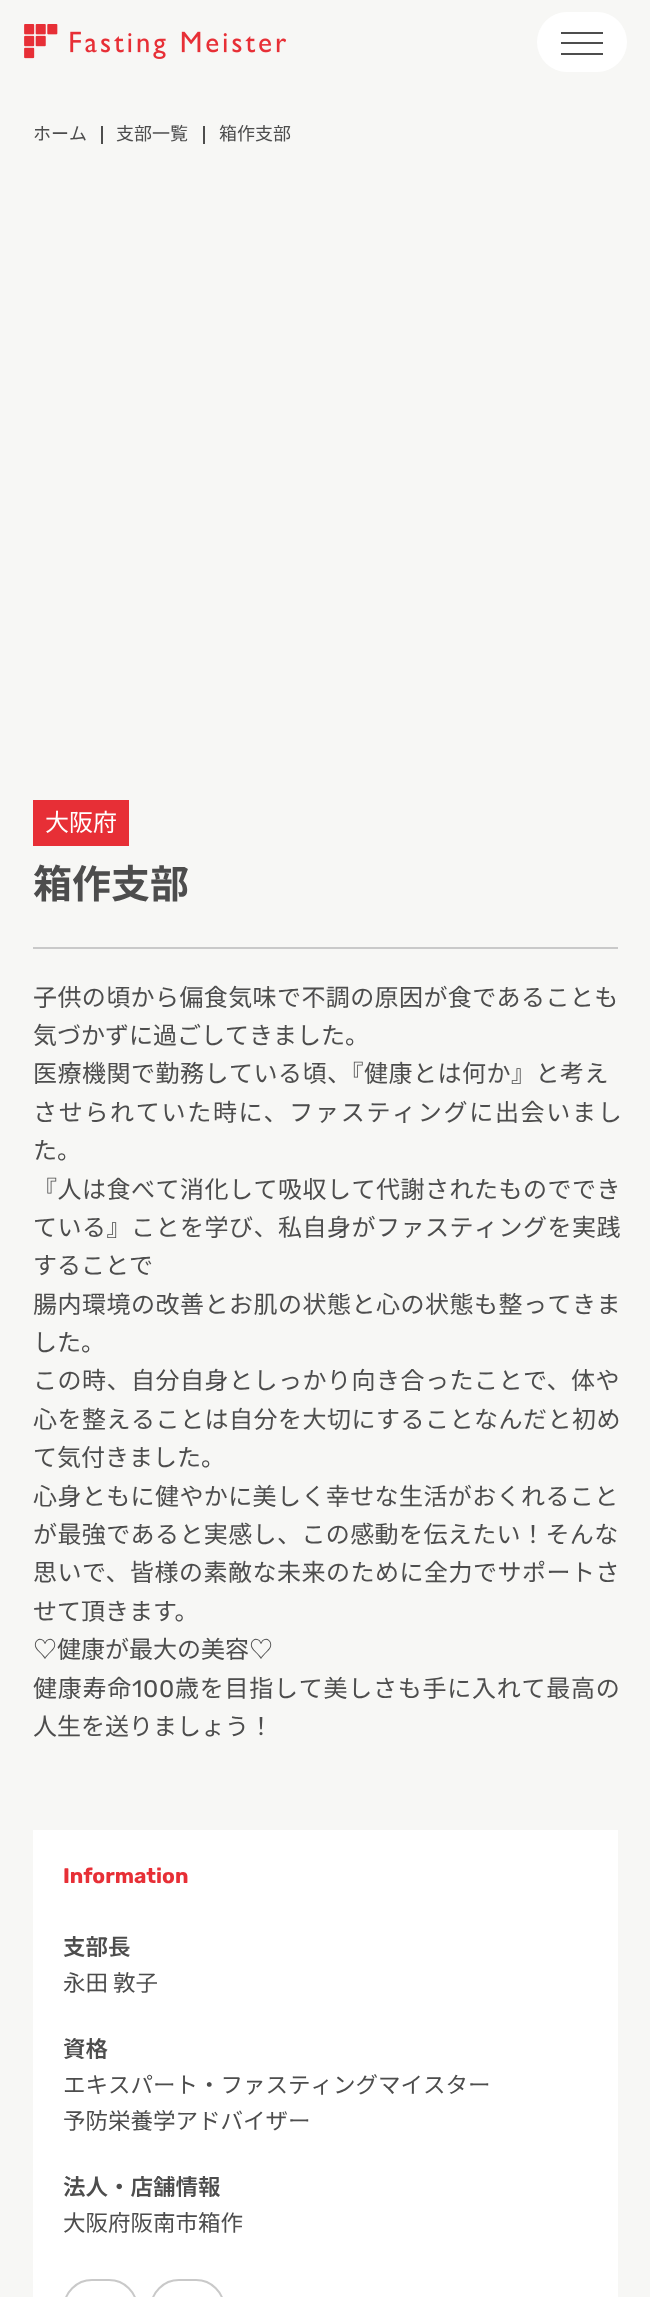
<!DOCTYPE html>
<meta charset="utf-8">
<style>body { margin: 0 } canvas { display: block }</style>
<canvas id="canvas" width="650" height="2297"></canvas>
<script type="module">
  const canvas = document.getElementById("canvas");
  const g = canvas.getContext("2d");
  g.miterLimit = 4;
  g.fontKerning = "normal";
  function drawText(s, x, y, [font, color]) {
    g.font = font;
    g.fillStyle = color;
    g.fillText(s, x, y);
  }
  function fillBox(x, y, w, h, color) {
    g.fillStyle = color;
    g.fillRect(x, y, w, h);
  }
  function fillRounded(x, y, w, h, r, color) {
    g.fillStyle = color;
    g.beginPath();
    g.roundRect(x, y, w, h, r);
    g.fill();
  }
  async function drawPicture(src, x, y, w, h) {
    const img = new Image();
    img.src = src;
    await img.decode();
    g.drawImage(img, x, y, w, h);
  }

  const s1 = ["18px Noto Sans JP", "#4D4D4D"];
  const s2 = ["24px Noto Sans JP", "#FFFFFF"];
  const s3 = ["bold 39px Noto Sans JP", "#4D4D4D"];
  const s4 = ["24px Noto Sans JP", "#4D4D4D"];
  const s5 = ["24px Rubik", "#4D4D4D"];
  const s6 = ["bold 21px Rubik", "#E72F36"];
  const s7 = ["600 22.5px Noto Sans JP", "#4D4D4D"];
  const s8 = ["22.5px Noto Sans JP", "#4D4D4D"];

  fillBox(0, 0, 650, 2297, "#F7F7F5");
  await drawPicture("pic1.png", 24, 24, 262, 35);
  fillRounded(537, 12, 90, 60, 30, "#FFFFFF");
  fillBox(561, 32, 42, 2, "#4D4D4D");
  fillBox(561, 42, 42, 2, "#4D4D4D");
  fillBox(561, 53, 42, 2, "#4D4D4D");
  drawText("ホーム", 33, 140, s1);
  fillBox(101, 126, 2, 18, "#4D4D4D");
  drawText("支部一覧", 116, 140, s1);
  fillBox(203, 126, 2, 18, "#4D4D4D");
  drawText("箱作支部", 219, 140, s1);
  fillBox(33, 800, 96, 46, "#E72F36");
  drawText("大阪府", 45, 831, s2);
  drawText("箱作支部", 33, 898, s3);
  fillBox(33, 947, 585, 2, "#C9C9C9");
  g.letterSpacing = "0.4px";
  drawText("子供の頃から偏食気味で不調の原因が食であることも", 33, 1006, s4);
  g.letterSpacing = "0px";
  drawText("気づかずに過ごしてきました。", 33, 1044, s4);
  g.letterSpacing = "0.5px";
  drawText("医療機関で勤務している頃、『健康とは何か』と考え", 33, 1082, s4);
  g.letterSpacing = "1.7px";
  drawText("させられていた時に、ファスティングに出会いまし", 33, 1121, s4);
  g.letterSpacing = "0px";
  drawText("た。", 33, 1159, s4);
  g.letterSpacing = "0.5px";
  drawText("『人は食べて消化して吸収して代謝されたものででき", 33, 1198, s4);
  drawText("ている』ことを学び、私自身がファスティングを実践", 33, 1236, s4);
  g.letterSpacing = "0px";
  drawText("することで", 33, 1274, s4);
  g.letterSpacing = "0.5px";
  drawText("腸内環境の改善とお肌の状態と心の状態も整ってきま", 33, 1313, s4);
  g.letterSpacing = "0px";
  drawText("した。", 33, 1351, s4);
  g.letterSpacing = "0.5px";
  drawText("この時、自分自身としっかり向き合ったことで、体や", 33, 1389, s4);
  drawText("心を整えることは自分を大切にすることなんだと初め", 33, 1428, s4);
  g.letterSpacing = "0px";
  drawText("て気付きました。", 33, 1466, s4);
  g.letterSpacing = "0.4px";
  drawText("心身ともに健やかに美しく幸せな生活がおくれること", 33, 1505, s4);
  drawText("が最強であると実感し、この感動を伝えたい！そんな", 33, 1543, s4);
  g.letterSpacing = "0.5px";
  drawText("思いで、皆様の素敵な未来のために全力でサポートさ", 33, 1581, s4);
  g.letterSpacing = "0px";
  drawText("せて頂きます。", 33, 1620, s4);
  drawText("♡健康が最大の美容♡", 33, 1658, s4);
  g.letterSpacing = "0.75px";
  drawText("健康寿命", 33, 1697, s4);
  drawText("100", 132, 1697, s5);
  drawText("歳を目指して美しさも手に入れて最高の", 175, 1697, s4);
  g.letterSpacing = "0px";
  drawText("人生を送りましょう！", 33, 1735, s4);
  fillBox(33, 1830, 585, 467, "#FFFFFF");
  drawText("Information", 63, 1883, s6);
  drawText("支部長", 63, 1955, s7);
  drawText("永田 敦子", 63, 1991, s8);
  drawText("資格", 63, 2057, s7);
  drawText("エキスパート・ファスティングマイスター", 63, 2093, s8);
  drawText("予防栄養学アドバイザー", 63, 2129, s8);
  drawText("法人・店舗情報", 63, 2195, s7);
  drawText("大阪府阪南市箱作", 63, 2231, s8);
  g.beginPath();
  g.roundRect(64, 2280, 73, 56, 36.5);
  g.strokeStyle = "#C9C9C9";
  g.lineWidth = 2;
  g.stroke();
  g.beginPath();
  g.roundRect(151, 2280, 73, 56, 36.5);
  g.stroke();
</script>
